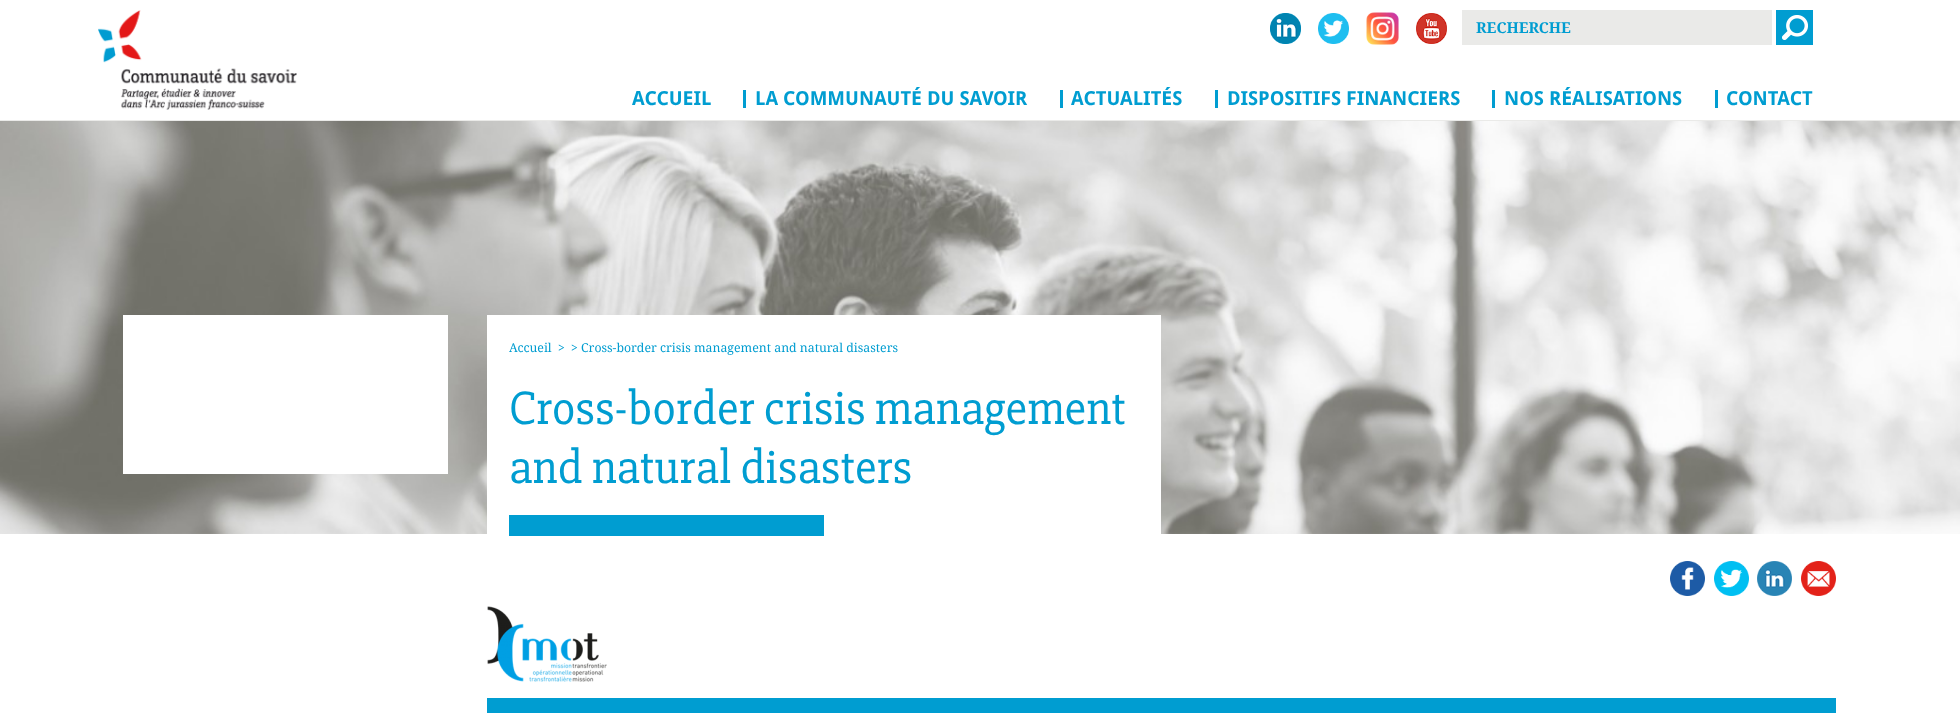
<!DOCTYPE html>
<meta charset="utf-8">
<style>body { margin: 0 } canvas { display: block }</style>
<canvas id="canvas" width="1960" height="713"></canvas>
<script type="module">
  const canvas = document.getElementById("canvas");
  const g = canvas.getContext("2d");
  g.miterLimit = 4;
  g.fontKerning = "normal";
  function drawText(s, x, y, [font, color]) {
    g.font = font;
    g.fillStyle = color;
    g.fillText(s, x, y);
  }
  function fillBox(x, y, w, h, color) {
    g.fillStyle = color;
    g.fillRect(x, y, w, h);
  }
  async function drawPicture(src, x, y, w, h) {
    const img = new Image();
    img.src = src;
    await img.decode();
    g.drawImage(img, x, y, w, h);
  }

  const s1 = ["bold 15px Droid Serif", "#009DD1"];
  const s2 = ["bold 19.4px Droid Sans", "#009DD1"];
  const s3 = ["12.3px Droid Serif", "#009DD1"];
  const s4 = ["48.4px 'Slabo 27px'", "#009DD1"];

  fillBox(0, 0, 1960, 713, "#FFFFFF");
  fillBox(0, 120, 1960, 1, "#EAEAE8");
  await drawPicture("pic1.png", 98, 10, 199, 100);
  await drawPicture("pic2.png", 1270, 13, 31, 31);
  await drawPicture("pic3.png", 1318, 13, 31, 31);
  await drawPicture("pic4.png", 1366, 12, 33, 33);
  await drawPicture("pic5.png", 1416, 13, 31, 31);
  fillBox(1462, 10, 310, 35, "#EAEAE8");
  drawText("RECHERCHE", 1476, 33, s1);
  fillBox(1776, 10, 37, 35, "#009DD1");
  await drawPicture("pic6.png", 1782, 15, 26, 25);
  drawText("ACCUEIL", 632, 105, s2);
  fillBox(743, 90, 3, 18, "#009DD1");
  drawText("LA COMMUNAUTÉ DU SAVOIR", 755, 105, s2);
  fillBox(1060, 90, 3, 18, "#009DD1");
  drawText("ACTUALITÉS", 1071, 105, s2);
  fillBox(1215, 90, 3, 18, "#009DD1");
  drawText("DISPOSITIFS FINANCIERS", 1227, 105, s2);
  fillBox(1492, 90, 3, 18, "#009DD1");
  drawText("NOS RÉALISATIONS", 1504, 105, s2);
  fillBox(1715, 90, 3, 18, "#009DD1");
  drawText("CONTACT", 1726, 105, s2);
  await drawPicture("pic7.png", 0, 121, 1960, 413);
  fillBox(123, 315, 325, 159, "#FFFFFF");
  fillBox(487, 315, 674, 219, "#FFFFFF");
  drawText("Accueil", 509, 352, s3);
  drawText(">", 558, 352, s3);
  drawText("> Cross-border crisis management and natural disasters", 571, 352, s3);
  drawText("Cross-border crisis management", 509, 424, s4);
  drawText("and natural disasters", 509, 483, s4);
  fillBox(509, 515, 315, 21, "#009DD1");
  await drawPicture("pic8.png", 1670, 561, 35, 35);
  await drawPicture("pic9.png", 1714, 561, 35, 35);
  await drawPicture("pic10.png", 1757, 561, 35, 35);
  await drawPicture("pic11.png", 1801, 561, 35, 35);
  await drawPicture("pic12.png", 487, 606, 120, 76);
  fillBox(487, 698, 1349, 15, "#009DD1");
</script>
